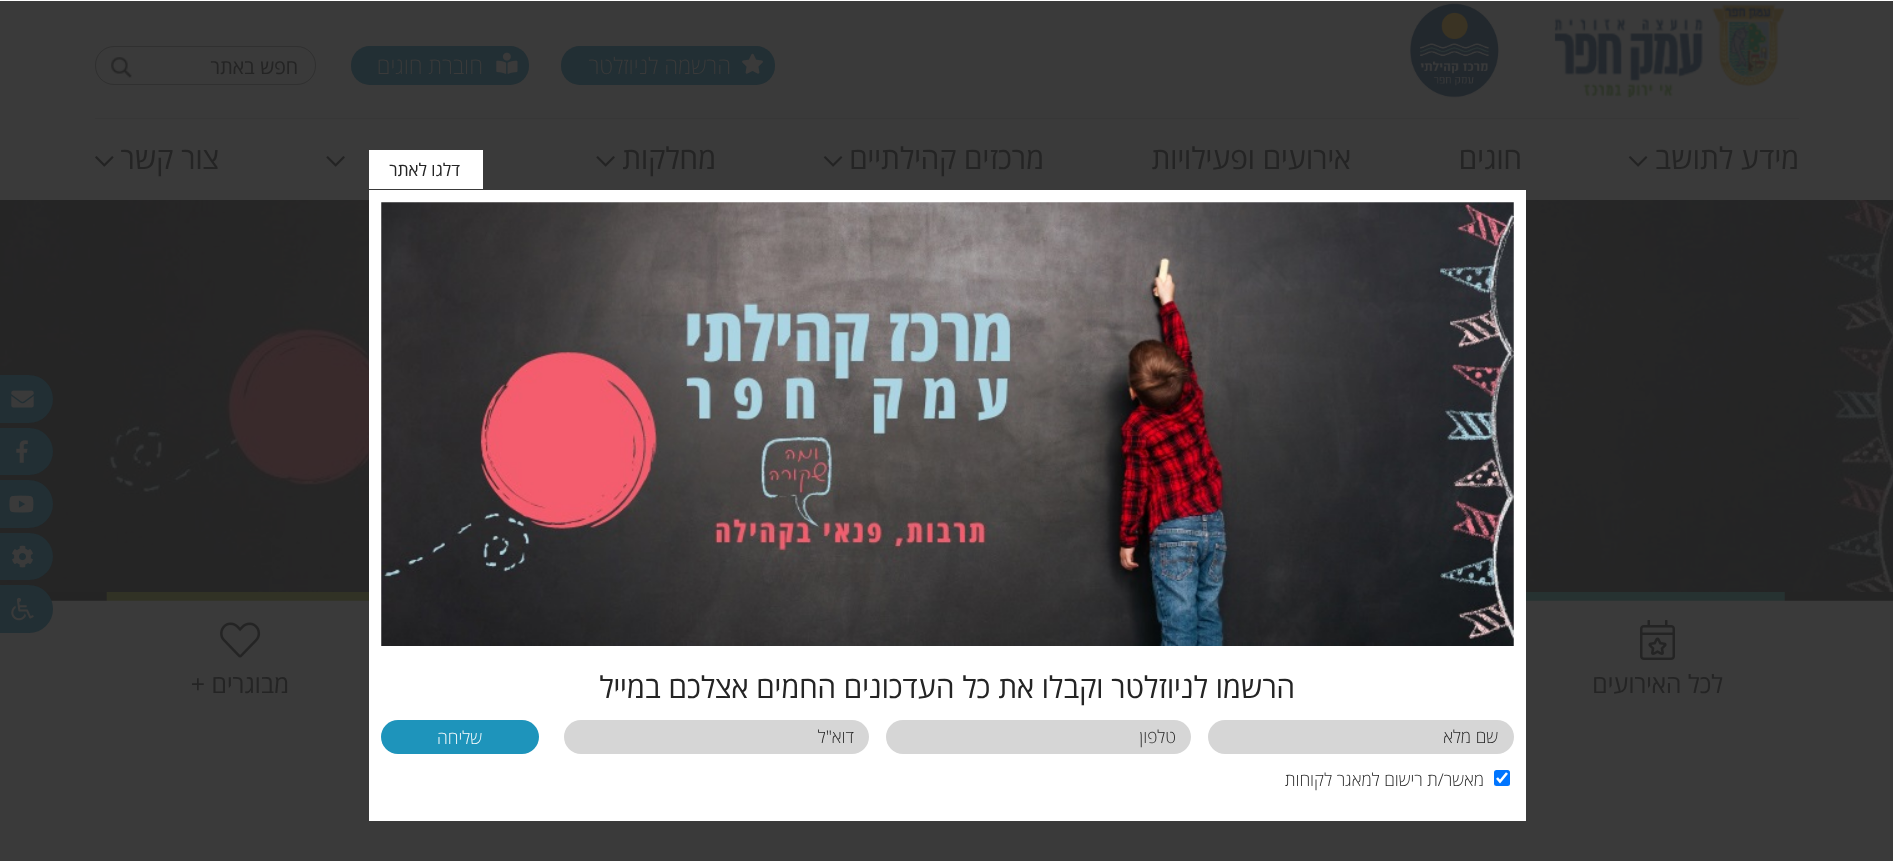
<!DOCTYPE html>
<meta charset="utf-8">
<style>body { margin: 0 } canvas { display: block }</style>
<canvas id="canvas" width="1893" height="861"></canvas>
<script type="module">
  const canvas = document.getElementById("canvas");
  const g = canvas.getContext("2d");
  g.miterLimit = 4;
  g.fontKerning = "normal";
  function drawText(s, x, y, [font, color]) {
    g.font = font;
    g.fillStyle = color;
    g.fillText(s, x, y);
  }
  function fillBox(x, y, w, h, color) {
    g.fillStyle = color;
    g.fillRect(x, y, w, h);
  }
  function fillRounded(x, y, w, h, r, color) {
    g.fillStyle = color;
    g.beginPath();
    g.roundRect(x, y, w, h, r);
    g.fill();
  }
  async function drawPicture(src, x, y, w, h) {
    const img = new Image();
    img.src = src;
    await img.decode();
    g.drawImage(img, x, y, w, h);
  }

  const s1 = ["300 22.5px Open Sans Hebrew", "#3A3A3A"];
  const s2 = ["20px Open Sans Hebrew", "#242424"];
  const s3 = ["30px Open Sans Hebrew", "#242424"];
  const s4 = ["25px Open Sans Hebrew", "#242424"];
  const s5 = ["17.5px Open Sans Hebrew", "#242424"];
  const s6 = ["300 17.5px Open Sans Hebrew", "#242424"];
  const s7 = ["300 17.5px Open Sans Hebrew", "#FFFFFF"];

  fillBox(0, 0, 1893, 861, "#3A3A3A");
  fillBox(0, 0, 1893, 1, "#FFFFFF");
  fillBox(95, 118, 1704, 1, "#373737");
  await drawPicture("pic1.png", 1554, 4, 230, 94);
  await drawPicture("pic2.png", 1410, 3, 89, 95);
  fillRounded(561, 46, 214, 39, 19, "#222F34");
  await drawPicture("pic3.png", 742, 53, 21, 21);
  g.direction = "rtl";
  drawText("הרשמה לניוזלטר", 731, 74, s1);
  fillRounded(351, 46, 178, 39, 19, "#222F34");
  await drawPicture("pic4.png", 496, 52, 22, 22);
  drawText("חוברת חוגים", 483, 74, s1);
  g.beginPath();
  g.roundRect(95.5, 46.5, 220, 38, 18.5);
  g.strokeStyle = "#303030";
  g.stroke();
  drawText("חפש באתר", 298, 74, s2);
  await drawPicture("pic5.png", 111, 57, 21, 21);
  drawText("מידע לתושב", 1799, 169, s3);
  await drawPicture("pic6.png", 1628, 156, 20, 11);
  drawText("חוגים", 1522, 169, s3);
  drawText("אירועים ופעילויות", 1351, 169, s3);
  drawText("מרכזים קהילתיים", 1044, 169, s3);
  await drawPicture("pic6.png", 823, 156, 20, 11);
  drawText("מחלקות", 716, 169, s3);
  await drawPicture("pic7.png", 596, 156, 19, 11);
  await drawPicture("pic7.png", 326, 156, 19, 11);
  drawText("צור קשר", 219, 169, s3);
  await drawPicture("pic8.png", 95, 156, 19, 11);
  await drawPicture("pic14.png", 0, 200, 1893, 392);
  g.fillStyle = "#222F34";
  g.beginPath();
  g.roundRect(0, 375, 53, 48, [0, 24, 24, 0]);
  g.fill();
  await drawPicture("pic9.png", 11, 390, 23, 18);
  g.beginPath();
  g.roundRect(0, 428, 53, 47, [0, 23.5, 23.5, 0]);
  g.fill();
  await drawPicture("pic10.png", 16, 440, 12, 23);
  g.beginPath();
  g.roundRect(0, 480, 53, 48, [0, 24, 24, 0]);
  g.fill();
  await drawPicture("pic11.png", 9, 495, 25, 18);
  g.beginPath();
  g.roundRect(0, 533, 53, 47, [0, 23.5, 23.5, 0]);
  g.fill();
  await drawPicture("pic12.png", 12, 545, 21, 23);
  await drawPicture("pic15.png", 46, 592, 1847, 9);
  g.beginPath();
  g.roundRect(0, 585, 53, 48, [0, 24, 24, 0]);
  g.fill();
  await drawPicture("pic13.png", 11, 597, 23, 24);
  await drawPicture("pic16.png", 1640, 620, 35, 40);
  drawText("לכל האירועים", 1723, 693, s4);
  await drawPicture("pic17.png", 220, 622, 41, 36);
  drawText("מבוגרים +", 289, 693, s4);
  fillBox(369, 190, 1157, 631, "#FFFFFF");
  fillBox(369, 150, 114, 39, "#FFFFFF");
  drawText("דלגו לאתר", 460, 176, s5);
  await drawPicture("pic18.png", 381, 202, 1133, 444);
  drawText("הרשמו לניוזלטר וקבלו את כל העדכונים החמים אצלכם במייל", 1295, 698, s3);
  fillRounded(1208, 720, 306, 34, 17, "#D6D6D6");
  drawText("שם מלא", 1498, 743, s6);
  fillRounded(886, 720, 305, 34, 17, "#D6D6D6");
  drawText("טלפון", 1176, 743, s6);
  fillRounded(564, 720, 305, 34, 17, "#D6D6D6");
  drawText("דוא\"ל", 854, 743, s6);
  fillRounded(1494, 770, 16, 16, 2.5, "#0075FF");
  g.beginPath();
  g.moveTo(1497, 778);
  g.lineTo(1500, 781.5);
  g.lineTo(1507, 773);
  g.strokeStyle = "#FFFFFF";
  g.lineWidth = 2.6;
  g.stroke();
  drawText("מאשר/ת רישום למאגר לקוחות", 1484, 786, s6);
  fillRounded(381, 720, 158, 34, 17, "#1E94BB");
  drawText("שליחה", 482, 744, s7);
</script>
